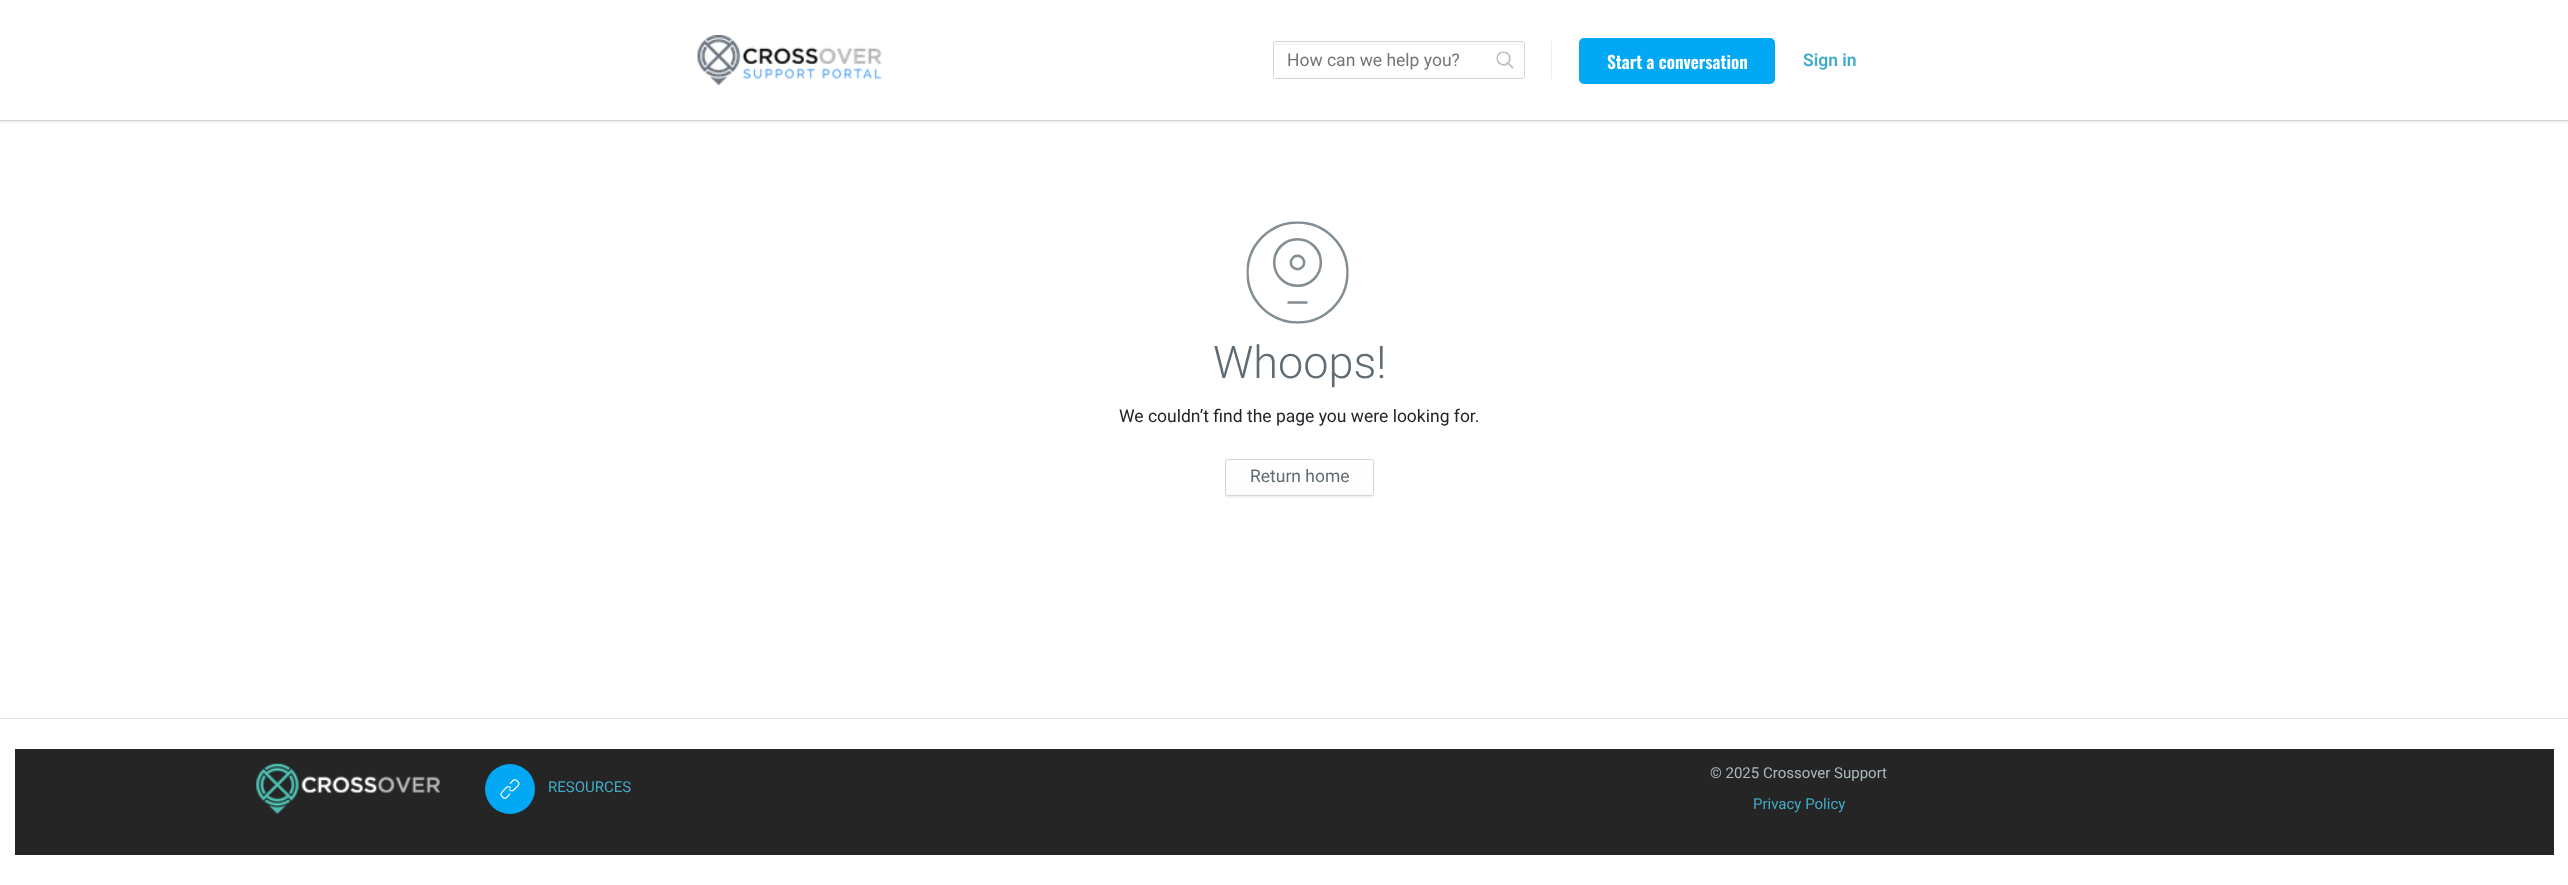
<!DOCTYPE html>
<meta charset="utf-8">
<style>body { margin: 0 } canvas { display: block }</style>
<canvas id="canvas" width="2568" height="885"></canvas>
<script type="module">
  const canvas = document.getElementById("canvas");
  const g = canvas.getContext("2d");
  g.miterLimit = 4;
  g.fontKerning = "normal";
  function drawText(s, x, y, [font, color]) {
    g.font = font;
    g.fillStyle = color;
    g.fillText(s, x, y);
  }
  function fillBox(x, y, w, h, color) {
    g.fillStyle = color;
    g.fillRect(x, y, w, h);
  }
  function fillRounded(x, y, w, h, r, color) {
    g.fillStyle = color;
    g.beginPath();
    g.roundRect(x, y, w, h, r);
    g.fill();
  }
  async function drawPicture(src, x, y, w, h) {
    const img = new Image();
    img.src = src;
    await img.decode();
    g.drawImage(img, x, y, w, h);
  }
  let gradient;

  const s1 = ["17.5px Roboto", "#757575"];
  const s2 = ["600 17.5px Oswald", "#FFFFFF"];
  const s3 = ["600 17.5px Roboto", "#42AAC8"];
  const s4 = ["300 45px Roboto", "#5F6C73"];
  const s5 = ["17.5px Roboto", "#212529"];
  const s6 = ["17.5px Roboto", "#5F6C73"];
  const s7 = ["15px Roboto", "#42AAC8"];
  const s8 = ["15px Roboto", "#ACB9BF"];

  fillBox(0, 0, 2568, 885, "#FFFFFF");
  g.save();
  g.beginPath();
  g.rect(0, 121, 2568, 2);
  g.clip();
  g.fillStyle = "rgba(0, 0, 0, 0.06)";
  g.filter = "blur(1px)";
  g.beginPath();
  g.rect(0, 1, 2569, 122);
  g.fill();
  g.filter = "none";
  g.restore();
  fillBox(0, 120, 2568, 1, "#D1D5D7");
  await drawPicture("pic1.png", 697, 35, 185, 50);
  fillBox(1551, 41, 1, 38, "#EBEEF0");
  g.fillStyle = "#F5F5F5";
  g.beginPath();
  g.moveTo(1275, 45);
  g.lineTo(1522, 45);
  g.lineTo(1524, 46);
  g.bezierCurveTo(1524, 45, 1524, 43, 1523, 43);
  g.lineTo(1274, 43);
  g.lineTo(1274, 46);
  g.closePath();
  g.fill();
  g.beginPath();
  g.roundRect(1273.5, 41.5, 251, 37, 2);
  g.strokeStyle = "#D1D5D7";
  g.stroke();
  drawText("How can we help you?", 1287, 66, s1);
  await drawPicture("pic2.png", 1496, 51, 18, 18);
  fillRounded(1579, 38, 196, 46, 5, "#02A8F3");
  drawText("Start a conversation", 1607, 69, s2);
  drawText("Sign in", 1803, 66, s3);
  await drawPicture("pic3.png", 1246, 221, 103, 103);
  drawText("Whoops!", 1213, 378, s4);
  drawText("We couldn’t find the page you were looking for.", 1119, 422, s5);
  g.fillStyle = "rgba(0, 0, 0, 0.05)";
  g.filter = "blur(0.5px)";
  g.beginPath();
  g.roundRect(1225, 460, 149, 38, 2.5);
  g.fill();
  g.filter = "none";
  g.save();
  g.beginPath();
  g.roundRect(1225, 459, 149, 37, 2.5);
  g.clip();
  gradient = g.createLinearGradient(1299, 460, 1299, 495);
  gradient.addColorStop(0, "#FFFFFF");
  gradient.addColorStop(1, "#FDFDFD");
  g.fillStyle = gradient;
  g.fillRect(1225, 460, 149, 35);
  g.restore();
  g.beginPath();
  g.roundRect(1225.5, 459.5, 148, 36, 2);
  g.stroke();
  drawText("Return home", 1250, 482, s6);
  fillBox(0, 718, 2568, 1, "#DFE4E6");
  fillBox(15, 749, 2539, 106, "#252525");
  await drawPicture("pic4.png", 256, 763, 184, 51);
  g.fillStyle = "#02A8F3";
  g.beginPath();
  g.arc(510, 789, 25, 0, Math.PI * 2);
  g.fill();
  await drawPicture("pic5.png", 500, 779, 20, 20);
  drawText("RESOURCES", 548, 792, s7);
  drawText("© 2025 Crossover Support", 1710, 778, s8);
  drawText("Privacy Policy", 1753, 809, s7);
</script>
